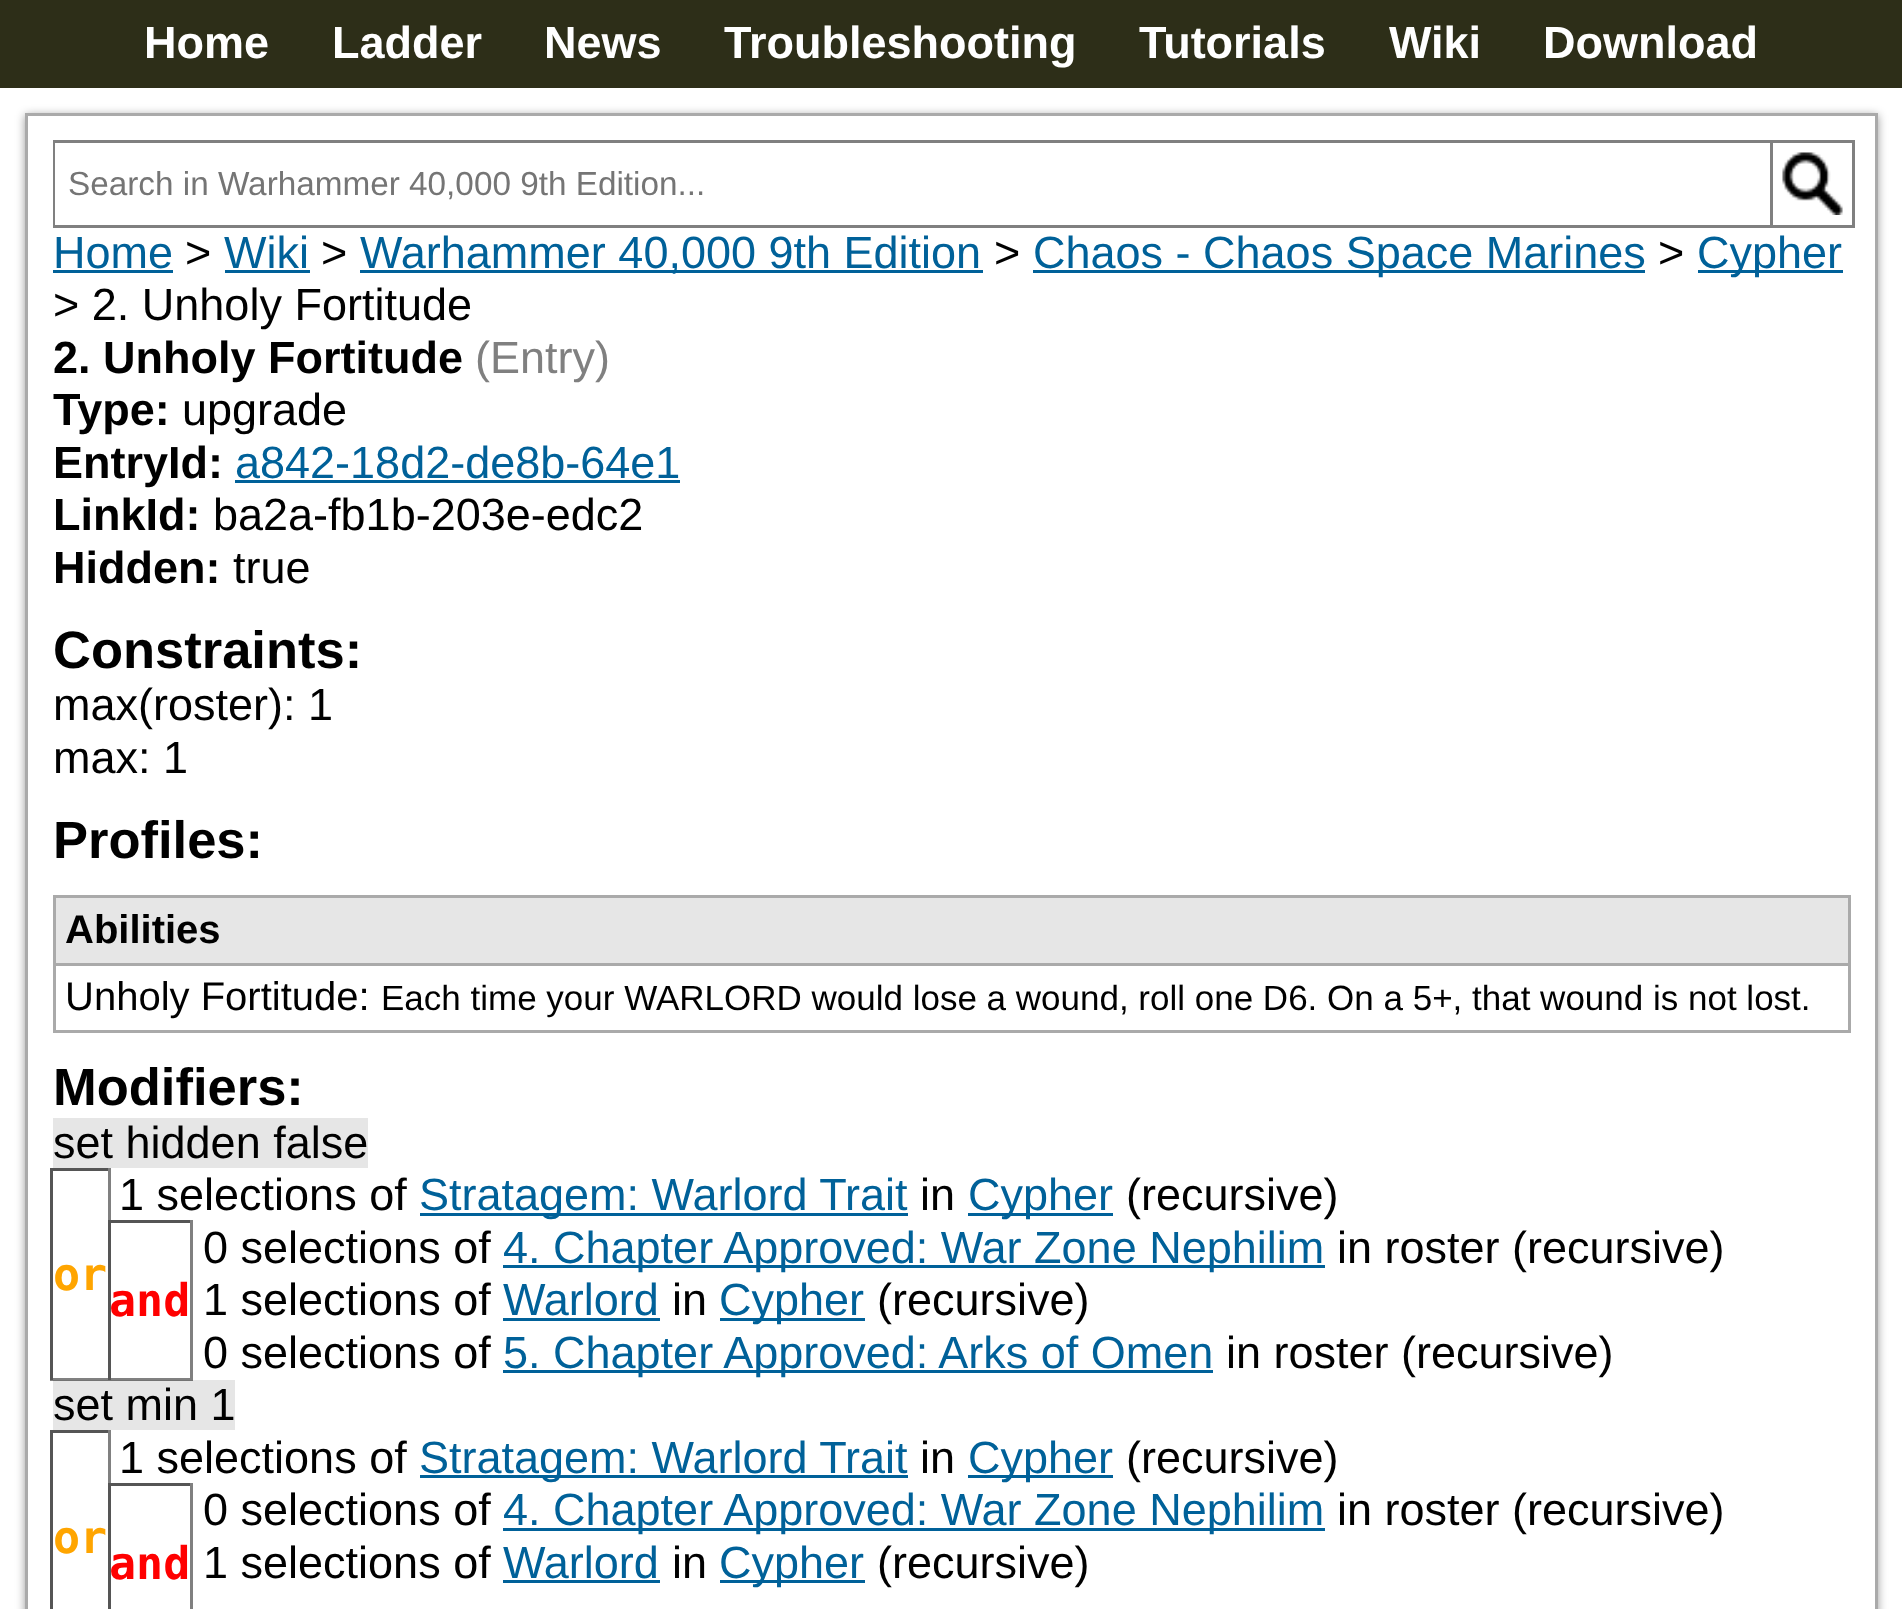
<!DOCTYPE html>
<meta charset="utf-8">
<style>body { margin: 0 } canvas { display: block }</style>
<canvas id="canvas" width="1902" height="1609"></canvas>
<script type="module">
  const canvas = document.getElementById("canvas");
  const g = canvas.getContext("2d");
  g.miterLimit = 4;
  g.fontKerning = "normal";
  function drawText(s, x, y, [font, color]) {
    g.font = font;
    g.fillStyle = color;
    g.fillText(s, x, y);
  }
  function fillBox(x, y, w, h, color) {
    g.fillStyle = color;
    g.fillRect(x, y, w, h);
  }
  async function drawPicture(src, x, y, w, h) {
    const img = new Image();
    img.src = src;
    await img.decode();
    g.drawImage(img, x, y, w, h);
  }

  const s1 = ["bold 45px Liberation Sans", "#FFFFFF"];
  const s2 = ["33.3px Liberation Sans", "#757575"];
  const s3 = ["45px Liberation Sans", "#006199"];
  const s4 = ["45px Liberation Sans", "#000000"];
  const s5 = ["bold 45px Liberation Sans", "#000000"];
  const s6 = ["45px Liberation Sans", "#808080"];
  const s7 = ["bold 52.5px Liberation Sans", "#000000"];
  const s8 = ["bold 40px Liberation Sans", "#000000"];
  const s9 = ["40px Liberation Sans", "#000000"];
  const s10 = ["35px Liberation Sans", "#000000"];
  const s11 = ["bold 45px DejaVu Sans Mono", "#FFA500"];
  const s12 = ["bold 45px DejaVu Sans Mono", "#FF0000"];

  fillBox(0, 0, 1902, 1609, "#FFFFFF");
  fillBox(53, 1380, 182, 50, "#E6E6E6");
  fillBox(0, 0, 1902, 88, "#2D2E18");
  drawText("Home", 144, 58, s1);
  drawText("Ladder", 332, 58, s1);
  drawText("News", 544, 58, s1);
  drawText("Troubleshooting", 724, 58, s1);
  drawText("Tutorials", 1139, 58, s1);
  drawText("Wiki", 1389, 58, s1);
  drawText("Download", 1543, 58, s1);
  g.save();
  g.beginPath();
  g.moveTo(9, 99);
  g.lineTo(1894, 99);
  g.lineTo(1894, 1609);
  g.lineTo(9, 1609);
  g.closePath();
  g.moveTo(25, 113);
  g.lineTo(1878, 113);
  g.lineTo(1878, 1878);
  g.lineTo(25, 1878);
  g.closePath();
  g.clip("evenodd");
  g.fillStyle = "rgba(0, 0, 0, 0.4)";
  g.filter = "blur(5px)";
  g.beginPath();
  g.rect(25, 115, 1853, 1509);
  g.fill();
  g.filter = "none";
  g.restore();
  g.strokeStyle = "#AAAAAA";
  g.lineWidth = 3;
  g.strokeRect(26.5, 114.5, 1850, 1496);
  g.strokeStyle = "#808080";
  g.strokeRect(54.5, 141.5, 1799, 85);
  fillBox(55, 143, 1, 82, "#FFFFFF");
  drawText("Search in Warhammer 40,000 9th Edition...", 68, 195, s2);
  fillBox(1770, 143, 3, 82, "#808080");
  await drawPicture("pic1.png", 1782, 152, 61, 63);
  drawText("Home", 53, 268, s3);
  fillBox(53, 270, 120, 3, "#006199");
  drawText(">", 185, 268, s4);
  drawText("Wiki", 224, 268, s3);
  fillBox(225, 270, 85, 3, "#006199");
  drawText(">", 321, 268, s4);
  fillBox(360, 270, 623, 3, "#006199");
  drawText("Warhammer 40,000 9th Edition", 360, 268, s3);
  drawText(">", 994, 268, s4);
  fillBox(1033, 270, 612, 3, "#006199");
  drawText("Chaos - Chaos Space Marines", 1033, 268, s3);
  drawText(">", 1658, 268, s4);
  fillBox(1698, 270, 145, 3, "#006199");
  drawText("Cypher", 1697, 268, s3);
  drawText("> 2. Unholy Fortitude", 53, 320, s4);
  drawText("2. Unholy Fortitude", 53, 373, s5);
  drawText("(Entry)", 475, 373, s6);
  drawText("Type:", 53, 425, s5);
  drawText("upgrade", 182, 425, s4);
  drawText("EntryId:", 53, 478, s5);
  drawText("a842-18d2-de8b-64e1", 235, 478, s3);
  fillBox(235, 480, 445, 3, "#006199");
  drawText("LinkId:", 53, 530, s5);
  drawText("ba2a-fb1b-203e-edc2", 213, 530, s4);
  drawText("Hidden:", 53, 583, s5);
  drawText("true", 233, 583, s4);
  drawText("Constraints:", 53, 668, s7);
  drawText("max(roster): 1", 53, 720, s4);
  drawText("max: 1", 53, 773, s4);
  drawText("Profiles:", 53, 858, s7);
  fillBox(53, 1030, 1797, 3, "#AAAAAA");
  fillBox(56, 898, 1792, 65, "#E6E6E6");
  fillBox(53, 895, 1797, 3, "#AAAAAA");
  fillBox(53, 963, 1797, 3, "#AAAAAA");
  fillBox(1848, 963, 3, 70, "#AAAAAA");
  fillBox(1848, 895, 3, 70, "#AAAAAA");
  fillBox(53, 963, 3, 70, "#AAAAAA");
  fillBox(53, 895, 3, 70, "#AAAAAA");
  drawText("Abilities", 65, 943, s8);
  drawText("Unholy Fortitude:", 65, 1010, s9);
  drawText("Each time your WARLORD would lose a wound, roll one D6. On a 5+, that wound is not lost.", 381, 1010, s10);
  drawText("Modifiers:", 53, 1105, s7);
  fillBox(53, 1118, 315, 50, "#E6E6E6");
  drawText("set hidden false", 53, 1158, s4);
  fillBox(50, 1168, 60, 3, "#555555");
  fillBox(108, 1168, 3, 52, "#808080");
  fillBox(50, 1378, 60, 3, "#808080");
  fillBox(53, 1380, 140, 1, "#737373");
  fillBox(50, 1168, 3, 212, "#555555");
  drawText("or", 53, 1290, s11);
  drawText("1 selections of", 119, 1210, s4);
  fillBox(420, 1213, 488, 3, "#006199");
  drawText("Stratagem: Warlord Trait", 419, 1210, s3);
  drawText("in", 920, 1210, s4);
  fillBox(968, 1213, 145, 3, "#006199");
  drawText("Cypher", 968, 1210, s3);
  drawText("(recursive)", 1126, 1210, s4);
  fillBox(108, 1220, 85, 3, "#555555");
  fillBox(190, 1220, 3, 160, "#808080");
  fillBox(108, 1378, 85, 2, "#808080");
  fillBox(108, 1220, 3, 160, "#555555");
  drawText("and", 109, 1316, s12);
  drawText("0 selections of", 203, 1263, s4);
  fillBox(503, 1265, 822, 3, "#006199");
  drawText("4. Chapter Approved: War Zone Nephilim", 503, 1263, s3);
  drawText("in roster (recursive)", 1337, 1263, s4);
  drawText("1 selections of", 203, 1315, s4);
  drawText("Warlord", 503, 1315, s3);
  fillBox(503, 1318, 157, 3, "#006199");
  drawText("in", 672, 1315, s4);
  fillBox(720, 1318, 145, 3, "#006199");
  drawText("Cypher", 719, 1315, s3);
  drawText("(recursive)", 877, 1315, s4);
  drawText("0 selections of", 203, 1368, s4);
  fillBox(503, 1370, 710, 3, "#006199");
  drawText("5. Chapter Approved: Arks of Omen", 503, 1368, s3);
  drawText("in roster (recursive)", 1226, 1368, s4);
  drawText("set min 1", 53, 1420, s4);
  fillBox(50, 1430, 60, 3, "#555555");
  fillBox(108, 1430, 3, 53, "#808080");
  fillBox(50, 1430, 3, 179, "#555555");
  drawText("or", 53, 1553, s11);
  drawText("1 selections of", 119, 1473, s4);
  fillBox(420, 1475, 488, 3, "#006199");
  drawText("Stratagem: Warlord Trait", 419, 1473, s3);
  drawText("in", 920, 1473, s4);
  fillBox(968, 1475, 145, 3, "#006199");
  drawText("Cypher", 968, 1473, s3);
  drawText("(recursive)", 1126, 1473, s4);
  fillBox(108, 1483, 85, 3, "#555555");
  fillBox(190, 1483, 3, 126, "#808080");
  fillBox(108, 1483, 3, 126, "#555555");
  drawText("and", 109, 1579, s12);
  drawText("0 selections of", 203, 1525, s4);
  fillBox(503, 1528, 822, 3, "#006199");
  drawText("4. Chapter Approved: War Zone Nephilim", 503, 1525, s3);
  drawText("in roster (recursive)", 1337, 1525, s4);
  drawText("1 selections of", 203, 1578, s4);
  drawText("Warlord", 503, 1578, s3);
  fillBox(503, 1580, 157, 3, "#006199");
  drawText("in", 672, 1578, s4);
  fillBox(720, 1580, 145, 3, "#006199");
  drawText("Cypher", 719, 1578, s3);
  drawText("(recursive)", 877, 1578, s4);
</script>
